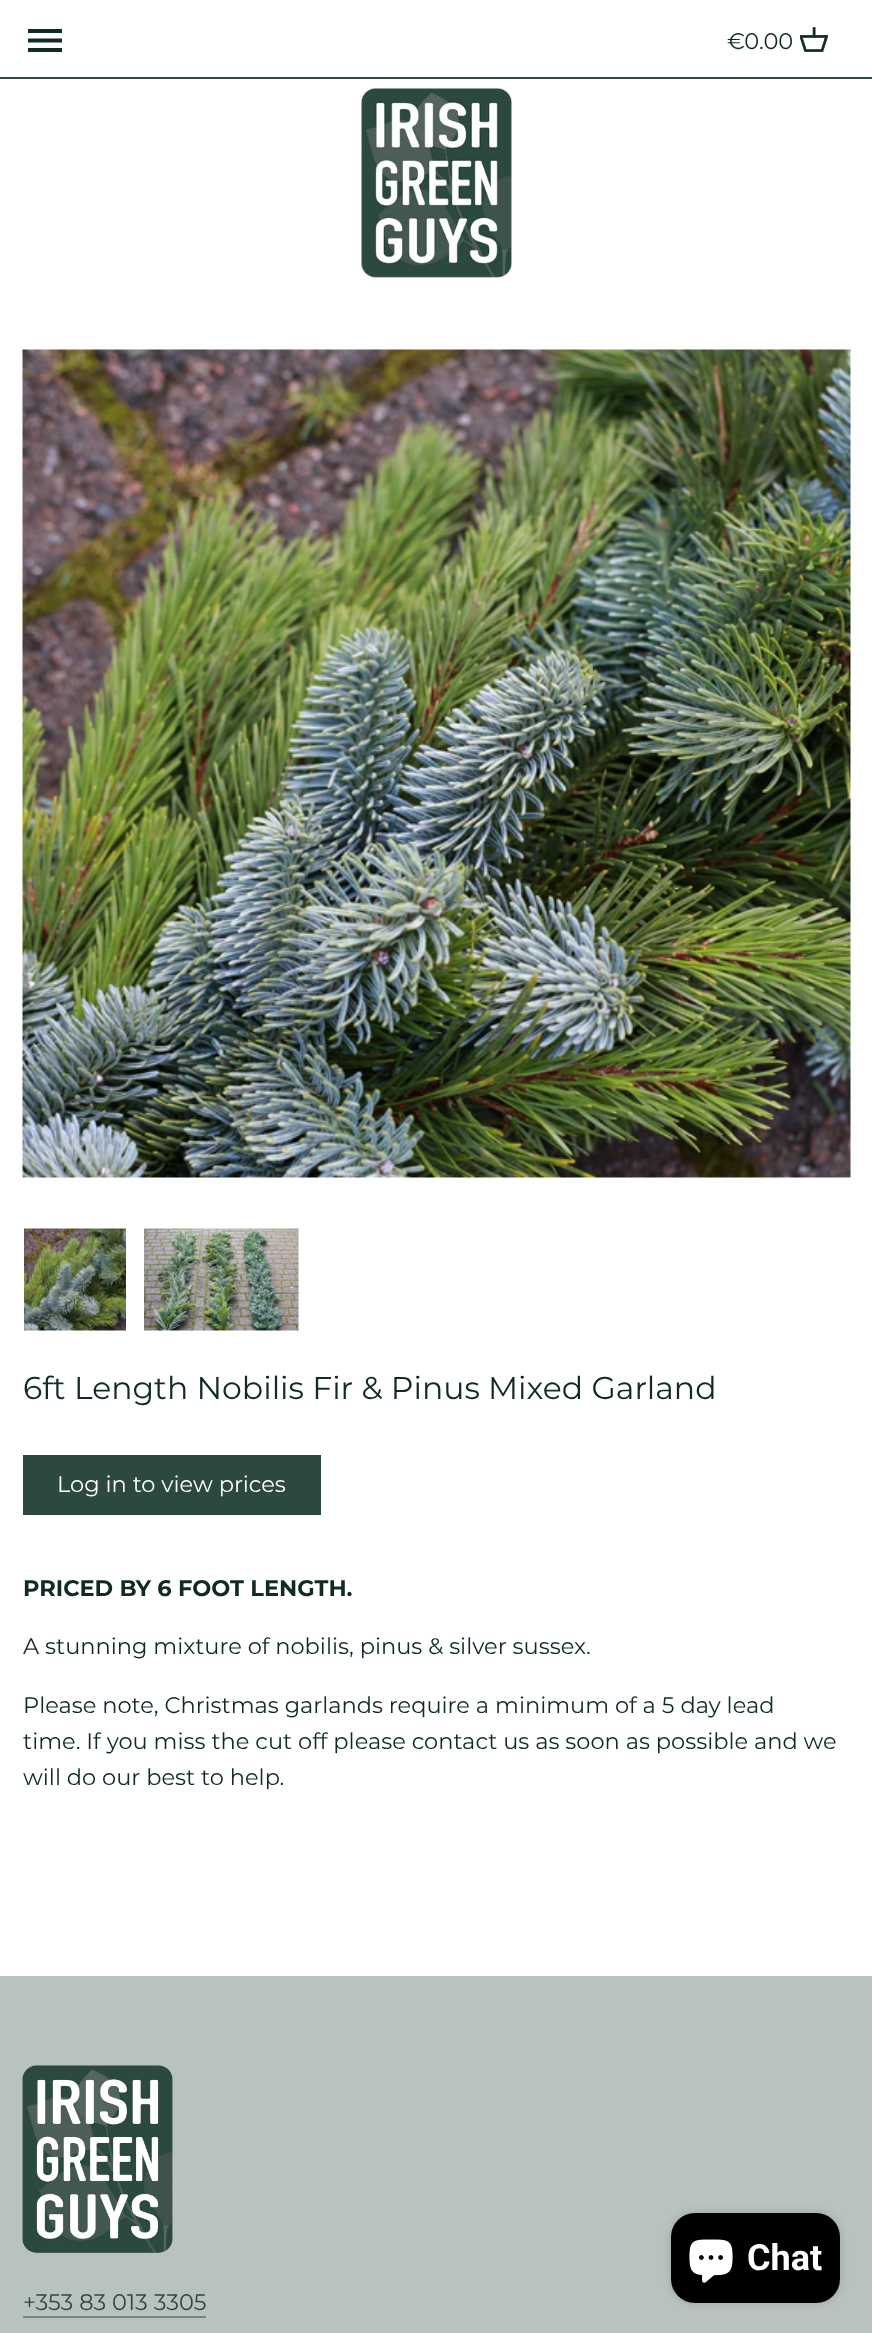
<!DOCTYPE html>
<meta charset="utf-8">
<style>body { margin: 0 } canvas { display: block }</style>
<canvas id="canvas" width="872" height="2333"></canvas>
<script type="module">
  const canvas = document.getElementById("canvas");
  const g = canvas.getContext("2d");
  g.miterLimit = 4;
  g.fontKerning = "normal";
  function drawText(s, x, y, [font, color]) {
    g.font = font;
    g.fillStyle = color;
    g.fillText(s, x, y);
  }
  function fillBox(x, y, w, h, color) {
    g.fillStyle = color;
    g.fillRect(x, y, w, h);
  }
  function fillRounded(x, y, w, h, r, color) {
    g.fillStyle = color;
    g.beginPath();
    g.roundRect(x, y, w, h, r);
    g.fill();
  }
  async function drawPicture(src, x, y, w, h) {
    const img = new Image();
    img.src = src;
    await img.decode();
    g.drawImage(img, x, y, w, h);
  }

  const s1 = ["22.5px Montserrat", "#0F2B22"];
  const s2 = ["31.5px Montserrat", "#0F2B22"];
  const s3 = ["22.5px Montserrat", "#FFFFFF"];
  const s4 = ["bold 22.5px Montserrat", "#0F2B22"];
  const s5 = ["22.5px Montserrat", "#2C483F"];
  const s6 = ["bold 36px Roboto", "#FFFFFF"];

  fillBox(0, 0, 872, 2333, "#B8C2BE");
  fillBox(0, 0, 872, 1976, "#FFFFFF");
  fillBox(0, 77, 872, 2, "#2C483F");
  g.fillStyle = "#0F2B22";
  g.beginPath();
  g.moveTo(28, 52);
  g.lineTo(62, 52);
  g.lineTo(62, 48);
  g.lineTo(28, 48);
  g.closePath();
  g.moveTo(28, 42.5);
  g.lineTo(62, 42.5);
  g.lineTo(62, 38.5);
  g.lineTo(28, 38.5);
  g.closePath();
  g.moveTo(28, 29);
  g.lineTo(28, 33);
  g.lineTo(62, 33);
  g.lineTo(62, 29);
  g.closePath();
  g.fill();
  drawText("€0.00", 727, 49, s1);
  await drawPicture("pic1.png", 800, 27, 28, 25);
  await drawPicture("pic2.png", 361, 88, 151, 190);
  await drawPicture("pic3.png", 22, 349, 829, 829);
  await drawPicture("pic4.png", 24, 1228, 102, 103);
  await drawPicture("pic5.png", 144, 1228, 155, 103);
  drawText("6ft Length Nobilis Fir & Pinus Mixed Garland", 23, 1399, s2);
  fillBox(23, 1455, 298, 60, "#2C483F");
  drawText("Log in to view prices", 57, 1492, s3);
  drawText("PRICED BY 6 FOOT LENGTH.", 23, 1596, s4);
  drawText("A stunning mixture of nobilis, pinus & silver sussex.", 23, 1654, s1);
  drawText("Please note, Christmas garlands require a minimum of a 5 day lead", 23, 1713, s1);
  drawText("time. If you miss the cut off please contact us as soon as possible and we", 23, 1749, s1);
  drawText("will do our best to help.", 23, 1785, s1);
  await drawPicture("pic6.png", 22, 2065, 151, 188);
  drawText("+353 83 013 3305", 23, 2310, s5);
  fillBox(23, 2316, 183, 2, "#72857F");
  g.fillStyle = "rgba(0, 0, 0, 0.15)";
  g.filter = "blur(4px)";
  g.beginPath();
  g.roundRect(671, 2213, 169, 90, 24);
  g.fill();
  g.filter = "none";
  fillRounded(671, 2213, 169, 90, 24, "#000000");
  await drawPicture("pic7.png", 689, 2239, 44, 44);
  drawText("Chat", 747, 2270, s6);
</script>
